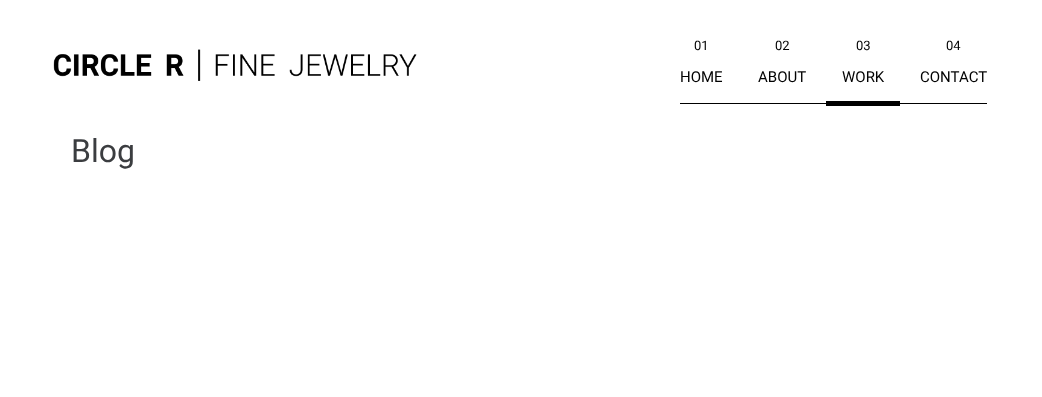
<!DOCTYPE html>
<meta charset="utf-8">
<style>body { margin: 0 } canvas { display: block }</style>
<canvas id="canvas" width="1042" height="397"></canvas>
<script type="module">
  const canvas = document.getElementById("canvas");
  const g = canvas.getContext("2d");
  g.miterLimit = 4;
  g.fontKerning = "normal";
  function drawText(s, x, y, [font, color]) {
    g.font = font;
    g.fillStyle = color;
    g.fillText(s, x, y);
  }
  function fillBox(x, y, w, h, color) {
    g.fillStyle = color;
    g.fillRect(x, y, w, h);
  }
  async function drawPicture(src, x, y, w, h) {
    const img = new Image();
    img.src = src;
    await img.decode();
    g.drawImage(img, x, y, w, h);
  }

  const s1 = ["13px Roboto", "#020202"];
  const s2 = ["15px Roboto", "#020202"];
  const s3 = ["32px Roboto", "#3B3D40"];

  fillBox(0, 0, 1042, 397, "#FFFFFF");
  await drawPicture("pic1.png", 53, 49, 364, 32);
  fillBox(680, 103, 307, 1, "#000000");
  drawText("01", 694, 50, s1);
  drawText("HOME", 680, 82, s2);
  drawText("02", 775, 50, s1);
  drawText("ABOUT", 758, 82, s2);
  fillBox(826, 101, 74, 5, "#000000");
  drawText("03", 856, 50, s1);
  drawText("WORK", 842, 82, s2);
  drawText("04", 946, 50, s1);
  drawText("CONTACT", 920, 82, s2);
  drawText("Blog", 71, 162, s3);
</script>
